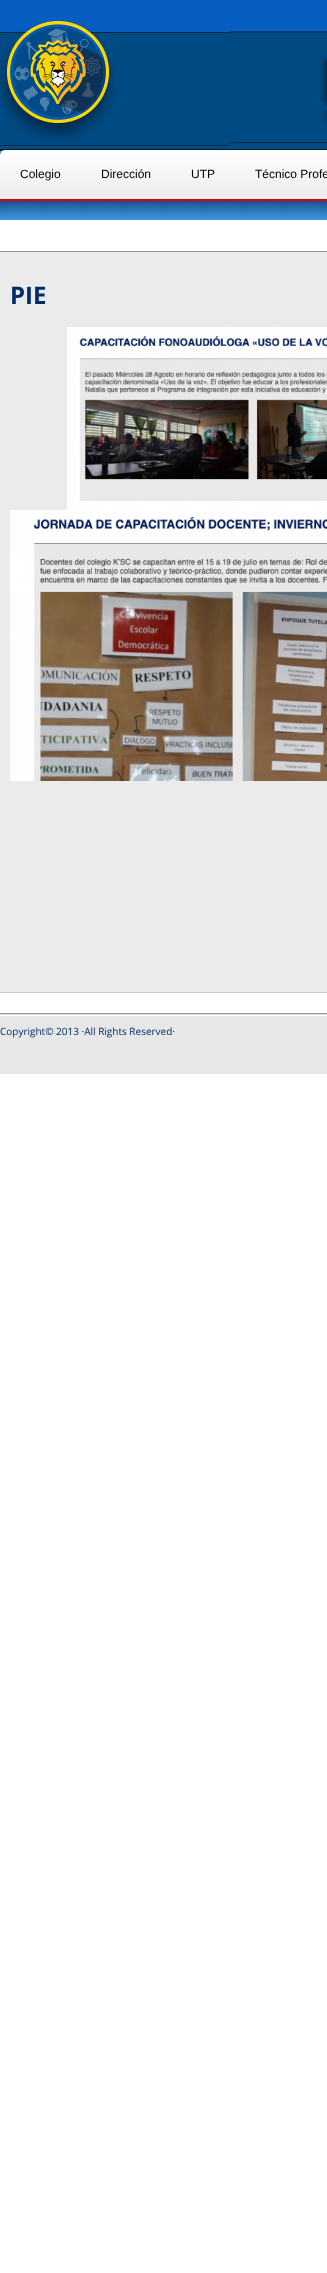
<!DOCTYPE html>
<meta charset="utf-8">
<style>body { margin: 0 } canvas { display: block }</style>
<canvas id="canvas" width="327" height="2273"></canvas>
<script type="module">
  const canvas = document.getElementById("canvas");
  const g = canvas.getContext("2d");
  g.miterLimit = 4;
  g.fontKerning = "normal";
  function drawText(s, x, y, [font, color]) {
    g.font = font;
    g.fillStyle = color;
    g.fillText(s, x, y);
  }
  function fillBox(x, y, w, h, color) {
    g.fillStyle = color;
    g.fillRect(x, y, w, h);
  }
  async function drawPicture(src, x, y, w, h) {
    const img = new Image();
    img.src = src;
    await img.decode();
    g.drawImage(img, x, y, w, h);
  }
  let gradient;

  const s1 = ["12px Liberation Sans", "#000000"];
  const s2 = ["bold 24px Open Sans", "#022B67"];
  const s3 = ["10px Open Sans", "#022B67"];

  fillBox(0, 0, 327, 2273, "#FFFFFF");
  await drawPicture("pic1.png", 0, 0, 327, 220);
  await drawPicture("pic2.png", 0, 21, 115, 121);
  await drawPicture("pic3.png", 230, 30, 97, 116);
  fillBox(0, 199, 327, 2, "#DB000B");
  gradient = g.createLinearGradient(41, 150, 41, 199);
  gradient.addColorStop(0, "#FEFEFE");
  gradient.addColorStop(1, "#ECECEC");
  g.fillStyle = gradient;
  g.beginPath();
  g.roundRect(0, 150, 81, 49, [5, 0, 0, 0]);
  g.fill();
  drawText("Colegio", 20, 178, s1);
  gradient = g.createLinearGradient(126, 150, 126, 199);
  gradient.addColorStop(0, "#FEFEFE");
  gradient.addColorStop(1, "#ECECEC");
  g.fillStyle = gradient;
  g.fillRect(81, 150, 90, 49);
  drawText("Dirección", 101, 178, s1);
  gradient = g.createLinearGradient(203, 150, 203, 199);
  gradient.addColorStop(0, "#FEFEFE");
  gradient.addColorStop(1, "#ECECEC");
  g.fillStyle = gradient;
  g.fillRect(171, 150, 64, 49);
  drawText("UTP", 191, 178, s1);
  gradient = g.createLinearGradient(308, 150, 308, 199);
  gradient.addColorStop(0, "#FEFEFE");
  gradient.addColorStop(1, "#ECECEC");
  g.fillStyle = gradient;
  g.fillRect(235, 150, 92, 49);
  drawText("Técnico Profe", 255, 178, s1);
  fillBox(0, 252, 327, 740, "#EBEBEB");
  fillBox(0, 251, 327, 1, "#999999");
  fillBox(0, 992, 327, 1, "#CCCCCC");
  drawText("PIE", 10, 304, s2);
  await drawPicture("pic4.png", 67, 327, 260, 183);
  await drawPicture("pic5.png", 10, 510, 317, 271);
  await drawPicture("pic6.png", 0, 1014, 327, 60);
  fillBox(0, 1013, 327, 1, "#999999");
  drawText("Copyright© 2013 ·All Rights Reserved·", 0, 1035, s3);
</script>
